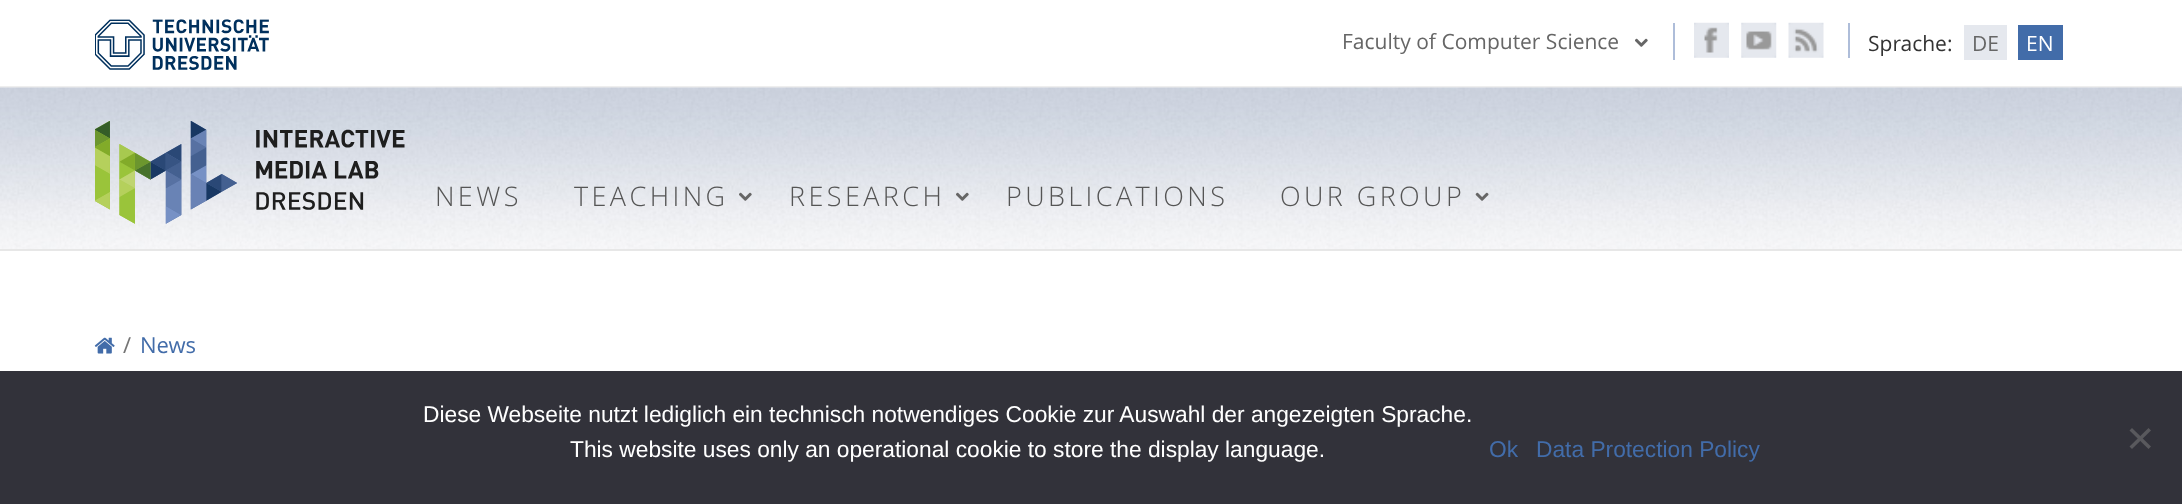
<!DOCTYPE html>
<meta charset="utf-8">
<style>body { margin: 0 } canvas { display: block }</style>
<canvas id="canvas" width="2182" height="504"></canvas>
<script type="module">
  const canvas = document.getElementById("canvas");
  const g = canvas.getContext("2d");
  g.miterLimit = 4;
  g.fontKerning = "normal";
  function drawText(s, x, y, [font, color]) {
    g.font = font;
    g.fillStyle = color;
    g.fillText(s, x, y);
  }
  function fillBox(x, y, w, h, color) {
    g.fillStyle = color;
    g.fillRect(x, y, w, h);
  }
  async function drawPicture(src, x, y, w, h) {
    const img = new Image();
    img.src = src;
    await img.decode();
    g.drawImage(img, x, y, w, h);
  }

  const s1 = ["21px Open Sans", "#666666"];
  const s2 = ["21px Open Sans", "#333333"];
  const s3 = ["21px Open Sans", "#FFFFFF"];
  const s4 = ["300 27px Open Sans", "#555555"];
  const s5 = ["22px Open Sans", "#757575"];
  const s6 = ["22px Open Sans", "#426CA9"];
  const s7 = ["22.75px Liberation Sans", "#FFFFFF"];
  const s8 = ["22.75px Liberation Sans", "#426CA9"];

  fillBox(0, 0, 2182, 504, "#FFFFFF");
  fillBox(0, 86, 2182, 2, "#EEEEEE");
  await drawPicture("pic1.png", 95, 19, 174, 51);
  fillBox(1673, 23, 2, 37, "#AEBDD9");
  drawText("Faculty of Computer Science", 1342, 49, s1);
  await drawPicture("pic2.png", 1635, 38, 13, 9);
  fillBox(1848, 23, 2, 35, "#AEBDD9");
  await drawPicture("pic3.png", 1694, 22, 35, 36);
  await drawPicture("pic4.png", 1741, 22, 36, 36);
  await drawPicture("pic5.png", 1788, 22, 36, 36);
  drawText("Sprache:", 1868, 51, s2);
  fillBox(1964, 25, 43, 35, "#E5E8EE");
  drawText("DE", 1972, 51, s1);
  fillBox(2018, 25, 45, 35, "#426CA9");
  drawText("EN", 2026, 51, s3);
  await drawPicture("pic6.png", 0, 87, 2182, 162);
  fillBox(0, 249, 2182, 2, "#E7E7E7");
  await drawPicture("pic7.png", 95, 121, 310, 103);
  g.letterSpacing = "3.4px";
  drawText("NEWS", 435, 206, s4);
  drawText("TEACHING", 574, 206, s4);
  await drawPicture("pic8.png", 739, 192, 13, 9);
  drawText("RESEARCH", 789, 206, s4);
  await drawPicture("pic9.png", 956, 192, 13, 9);
  drawText("PUBLICATIONS", 1006, 206, s4);
  drawText("OUR GROUP", 1280, 206, s4);
  await drawPicture("pic10.png", 1475, 192, 14, 9);
  await drawPicture("pic11.png", 94, 337, 21, 17);
  g.letterSpacing = "0px";
  drawText("/", 123, 353, s5);
  drawText("News", 140, 353, s6);
  fillBox(0, 371, 2182, 133, "#32323A");
  drawText("Diese Webseite nutzt lediglich ein technisch notwendiges Cookie zur Auswahl der angezeigten Sprache.", 423, 422, s7);
  drawText("This website uses only an operational cookie to store the display language.", 570, 457, s7);
  drawText("Ok", 1489, 457, s8);
  drawText("Data Protection Policy", 1536, 457, s8);
  g.fillStyle = "#59595D";
  g.beginPath();
  g.moveTo(2148.5, 428);
  g.lineTo(2151, 430.5);
  g.lineTo(2132, 449);
  g.lineTo(2129.5, 446.5);
  g.closePath();
  g.fill();
  g.beginPath();
  g.moveTo(2129.5, 430.5);
  g.lineTo(2132, 428);
  g.lineTo(2151, 446.5);
  g.lineTo(2148.5, 449);
  g.closePath();
  g.fill();
</script>
